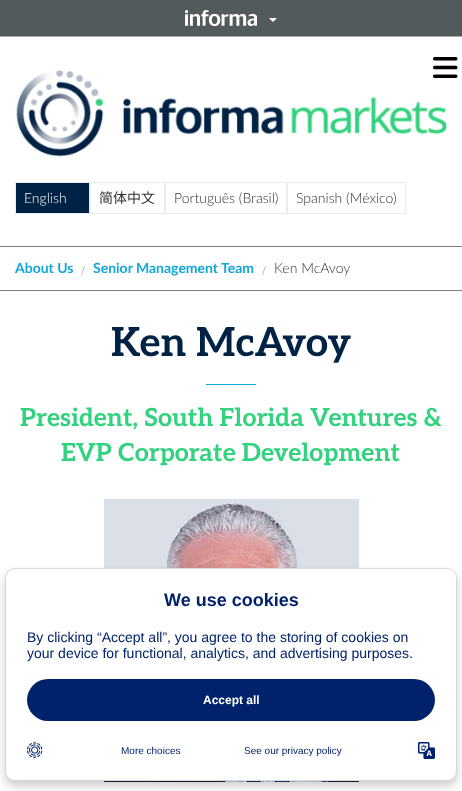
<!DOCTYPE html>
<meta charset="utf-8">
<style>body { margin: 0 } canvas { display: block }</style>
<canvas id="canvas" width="462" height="791"></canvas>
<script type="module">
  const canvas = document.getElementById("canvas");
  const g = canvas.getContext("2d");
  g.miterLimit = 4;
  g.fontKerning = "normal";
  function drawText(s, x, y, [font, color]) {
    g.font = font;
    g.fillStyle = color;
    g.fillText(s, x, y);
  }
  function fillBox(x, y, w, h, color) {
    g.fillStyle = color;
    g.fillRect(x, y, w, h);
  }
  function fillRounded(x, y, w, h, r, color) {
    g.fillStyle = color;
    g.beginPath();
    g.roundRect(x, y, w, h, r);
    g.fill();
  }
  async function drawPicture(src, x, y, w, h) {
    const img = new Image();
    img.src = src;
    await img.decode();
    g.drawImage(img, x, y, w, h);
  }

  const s1 = ["300 14px Lato", "#FFFFFF"];
  const s2 = ["14px Noto Sans CJK SC", "#313131"];
  const s3 = ["300 14px Lato", "#313131"];
  const s4 = ["bold 14px Lato", "#11A7D9"];
  const s5 = ["14px Liberation Serif", "#AAAAAA"];
  const s6 = ["bold 40px Aleo", "#002244"];
  const s7 = ["bold 25px Aleo", "#33D27E"];
  const s8 = ["bold 18px Liberation Sans", "#00226A"];
  const s9 = ["14px Liberation Sans", "#00226A"];
  const s10 = ["bold 12px Liberation Sans", "#FFFFFF"];
  const s11 = ["10px Liberation Sans", "#00226A"];

  fillBox(0, 0, 462, 791, "#FFFFFF");
  fillBox(0, 0, 462, 36, "#525A5C");
  fillBox(0, 36, 462, 1, "#A5ACAF");
  await drawPicture("pic1.png", 185, 10, 72, 16);
  g.fillStyle = "#FFFFFF";
  g.beginPath();
  g.moveTo(269, 18);
  g.lineTo(277, 18);
  g.lineTo(273, 22);
  g.closePath();
  g.fill();
  fillBox(0, 246, 462, 1, "#7D7D7D");
  await drawPicture("pic3.png", 16, 70, 431, 87);
  await drawPicture("pic2.png", 433, 57, 25, 21);
  g.fillStyle = "#002244";
  g.beginPath();
  g.rect(15.5, 182.5, 74, 31);
  g.fill();
  g.strokeStyle = "#E9ECEF";
  g.stroke();
  drawText("English", 24, 203, s1);
  g.strokeRect(90.5, 182.5, 74, 31);
  drawText("简体中文", 99, 203, s2);
  g.strokeRect(165.5, 182.5, 121, 31);
  drawText("Português (Brasil)", 174, 203, s3);
  g.strokeRect(287.5, 182.5, 118, 31);
  drawText("Spanish (México)", 296, 203, s3);
  fillBox(0, 290, 462, 1, "#7D7D7D");
  drawText("About Us", 15, 273, s4);
  drawText("/", 81, 275, s5);
  drawText("Senior Management Team", 93, 273, s4);
  drawText("/", 262, 275, s5);
  drawText("Ken McAvoy", 274, 273, s3);
  drawText("Ken McAvoy", 111, 356, s6);
  fillBox(206, 384, 50, 1, "#11A7D9");
  drawText("President, South Florida Ventures &", 20, 426, s7);
  drawText("EVP Corporate Development", 61, 461, s7);
  await drawPicture("pic4.png", 104, 499, 255, 283);
  g.fillStyle = "rgba(0, 0, 0, 0.2)";
  g.filter = "blur(5px)";
  g.beginPath();
  g.roundRect(5, 573, 452, 213, 10);
  g.fill();
  g.filter = "none";
  g.fillStyle = "#FFFFFF";
  g.beginPath();
  g.roundRect(5.5, 568.5, 451, 212, 9.5);
  g.fill();
  g.strokeStyle = "#D8D8D8";
  g.stroke();
  drawText("We use cookies", 164, 606, s8);
  drawText("By clicking “Accept all”, you agree to the storing of cookies on", 27, 642, s9);
  drawText("your device for functional, analytics, and advertising purposes.", 27, 658, s9);
  fillRounded(27, 679, 408, 42, 21, "#00226A");
  drawText("Accept all", 203, 704, s10);
  await drawPicture("pic5.png", 27, 742, 16, 16);
  drawText("More choices", 121, 754, s11);
  drawText("See our privacy policy", 244, 754, s11);
  await drawPicture("pic6.png", 418, 742, 17, 17);
</script>
